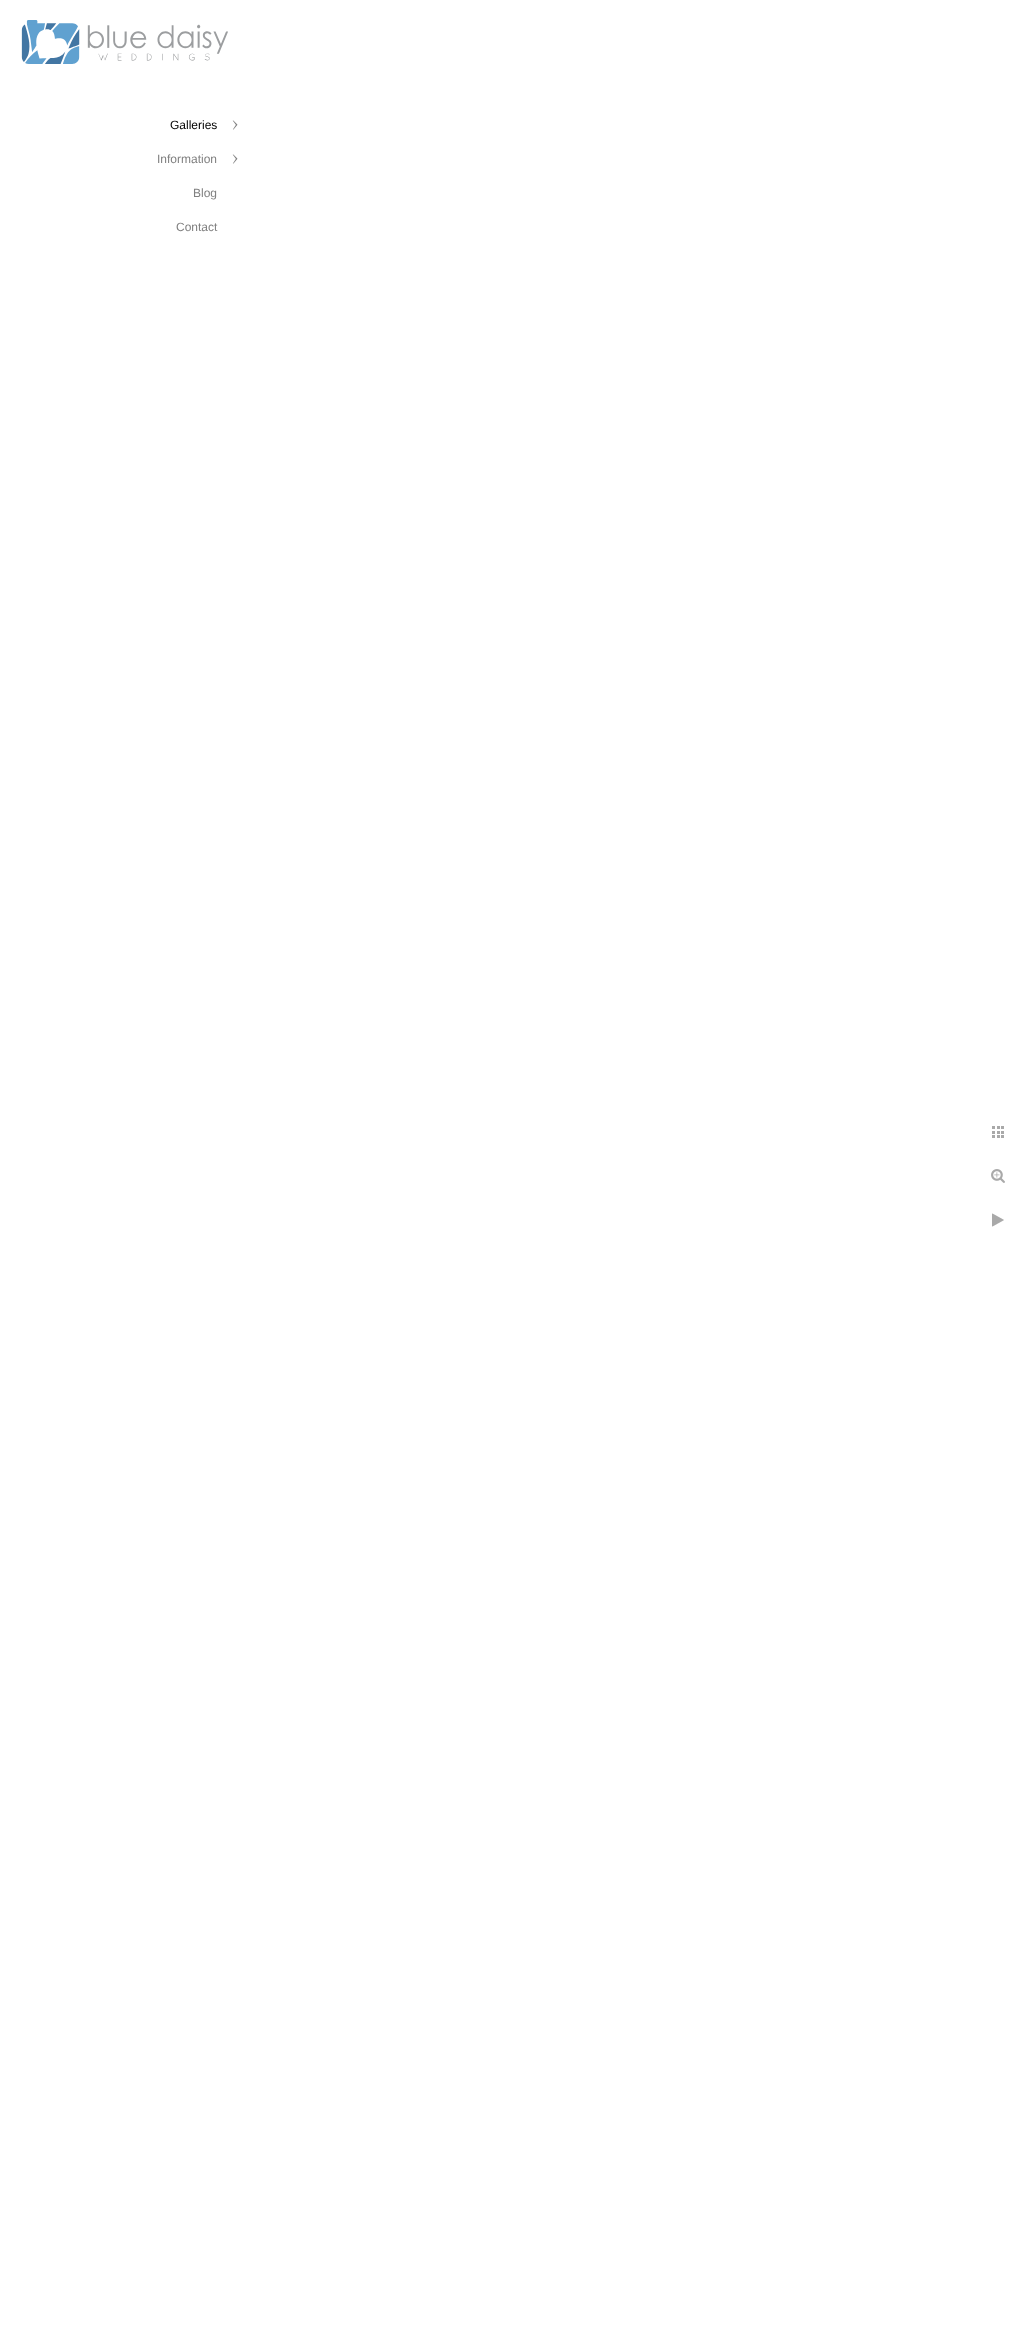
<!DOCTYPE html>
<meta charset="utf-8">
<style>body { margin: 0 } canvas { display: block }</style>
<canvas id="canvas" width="1025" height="2331"></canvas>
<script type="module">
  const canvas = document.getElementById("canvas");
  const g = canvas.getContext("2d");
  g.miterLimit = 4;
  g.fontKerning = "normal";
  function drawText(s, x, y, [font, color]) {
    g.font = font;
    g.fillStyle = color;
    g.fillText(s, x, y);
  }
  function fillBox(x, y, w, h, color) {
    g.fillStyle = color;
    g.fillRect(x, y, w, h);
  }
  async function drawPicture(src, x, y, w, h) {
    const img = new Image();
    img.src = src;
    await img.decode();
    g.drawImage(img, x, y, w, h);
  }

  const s1 = ["12px Liberation Sans", "#000000"];
  const s2 = ["12px Liberation Sans", "#808080"];

  fillBox(0, 0, 1025, 2331, "#FFFFFF");
  await drawPicture("pic1.png", 21, 20, 207, 44);
  drawText("Galleries", 170, 129, s1);
  await drawPicture("pic2.png", 232, 120, 6, 10);
  drawText("Information", 157, 163, s2);
  await drawPicture("pic2.png", 232, 154, 6, 10);
  drawText("Blog", 193, 197, s2);
  drawText("Contact", 176, 231, s2);
  await drawPicture("pic3.png", 992, 1126, 12, 12);
  await drawPicture("pic4.png", 991, 1169, 14, 14);
  await drawPicture("pic5.png", 992, 1213, 12, 14);
</script>
